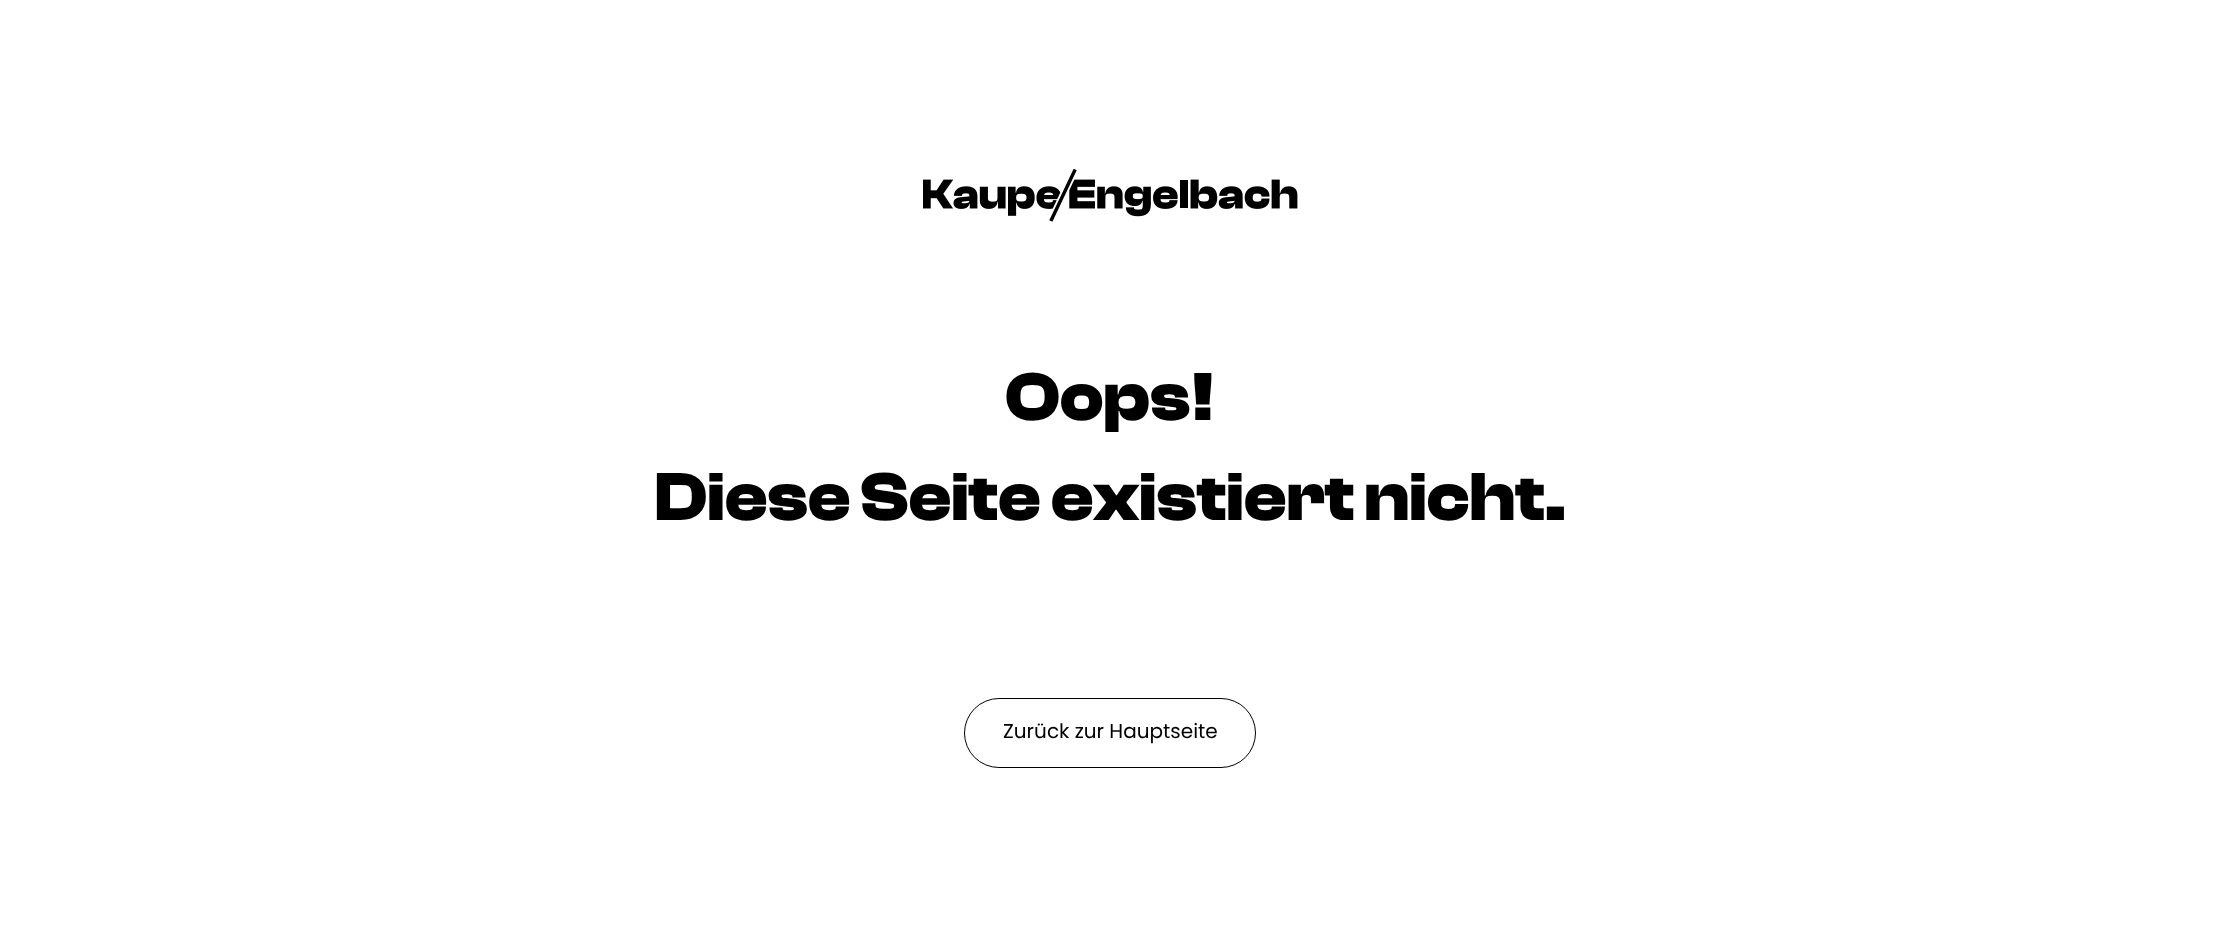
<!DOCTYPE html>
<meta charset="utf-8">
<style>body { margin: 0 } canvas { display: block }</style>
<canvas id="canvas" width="2220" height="936"></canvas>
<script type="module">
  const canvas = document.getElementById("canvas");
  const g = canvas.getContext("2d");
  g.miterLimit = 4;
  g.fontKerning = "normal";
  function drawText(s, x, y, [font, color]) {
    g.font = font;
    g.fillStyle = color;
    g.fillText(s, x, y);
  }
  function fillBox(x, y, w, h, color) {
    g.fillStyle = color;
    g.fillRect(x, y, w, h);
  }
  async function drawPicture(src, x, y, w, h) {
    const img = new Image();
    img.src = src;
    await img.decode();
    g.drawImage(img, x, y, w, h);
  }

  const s1 = ["bold 70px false", "#000000"];
  const s2 = ["20px Poppins", "#000000"];

  fillBox(0, 0, 2220, 936, "#FFFFFF");
  await drawPicture("pic1.png", 923, 169, 375, 53);
  drawText("Oops!", 1005, 420, s1);
  drawText("Diese Seite existiert nicht.", 654, 520, s1);
  g.beginPath();
  g.roundRect(964.5, 698.5, 291, 69, 34.5);
  g.strokeStyle = "#000000";
  g.stroke();
  drawText("Zurück zur Hauptseite", 1003, 738, s2);
</script>
